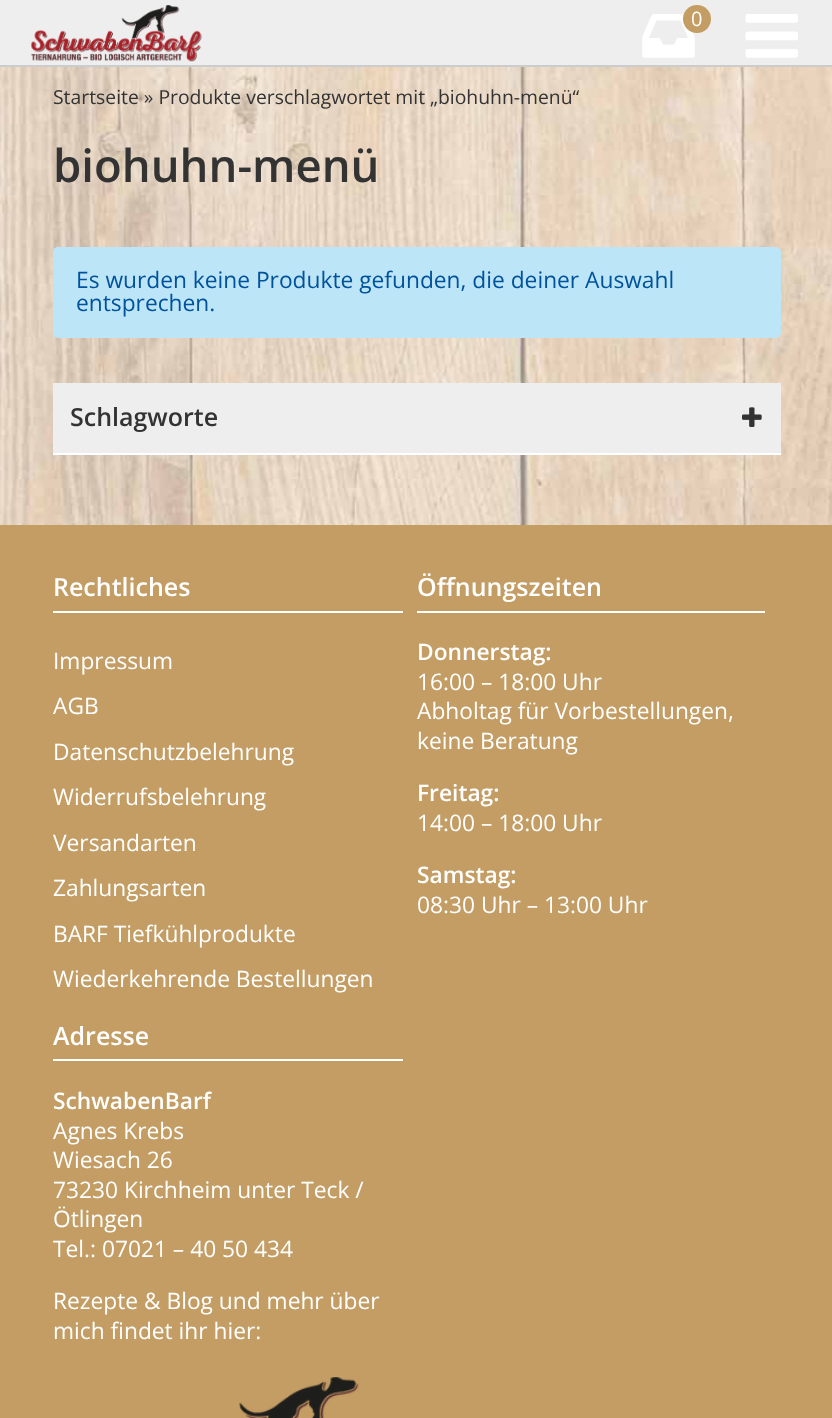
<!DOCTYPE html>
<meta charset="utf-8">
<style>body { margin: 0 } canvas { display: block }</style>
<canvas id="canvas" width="832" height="1418"></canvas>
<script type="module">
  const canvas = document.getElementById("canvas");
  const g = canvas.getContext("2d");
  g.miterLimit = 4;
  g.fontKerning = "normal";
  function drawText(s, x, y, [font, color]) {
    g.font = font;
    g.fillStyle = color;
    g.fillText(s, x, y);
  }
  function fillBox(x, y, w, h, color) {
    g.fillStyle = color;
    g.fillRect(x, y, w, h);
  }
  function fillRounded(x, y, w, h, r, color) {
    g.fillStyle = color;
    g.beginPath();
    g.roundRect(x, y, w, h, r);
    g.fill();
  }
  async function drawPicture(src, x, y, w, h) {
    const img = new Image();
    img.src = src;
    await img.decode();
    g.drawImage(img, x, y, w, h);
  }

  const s1 = ["20px Open Sans", "#FFFFFF"];
  const s2 = ["19.35px Open Sans", "#333333"];
  const s3 = ["600 45.5px Open Sans", "#333333"];
  const s4 = ["22.75px Open Sans", "#00529B"];
  const s5 = ["600 25px Open Sans", "#333333"];
  const s6 = ["600 25px Open Sans", "#FFFFFF"];
  const s7 = ["22.75px Open Sans", "#FFFFFF"];
  const s8 = ["600 22.75px Open Sans", "#FFFFFF"];

  fillBox(0, 0, 832, 1418, "#FFFFFF");
  await drawPicture("pic1.png", 0, 67, 832, 458);
  fillBox(0, 0, 832, 65, "#EEEEEE");
  fillBox(0, 65, 832, 2, "#CCCCCC");
  await drawPicture("pic2.png", 31, 5, 171, 57);
  await drawPicture("pic3.png", 642, 14, 53, 44);
  g.fillStyle = "#C39D63";
  g.beginPath();
  g.arc(697, 19, 14, 0, Math.PI * 2);
  g.fill();
  drawText("0", 691, 26, s1);
  await drawPicture("pic4.png", 745, 14, 53, 44);
  drawText("Startseite » Produkte verschlagwortet mit „biohuhn-menü“", 53, 104, s2);
  drawText("biohuhn-menü", 53, 182, s3);
  fillRounded(53, 247, 728, 91, 5, "#BDE5F8");
  drawText("Es wurden keine Produkte gefunden, die deiner Auswahl", 76, 288, s4);
  drawText("entsprechen.", 76, 311, s4);
  fillBox(53, 383, 728, 70, "#EEEEEE");
  fillBox(53, 453, 728, 2, "#FFFFFF");
  drawText("Schlagworte", 70, 426, s5);
  await drawPicture("pic5.png", 742, 407, 20, 20);
  fillBox(0, 525, 832, 893, "#C39D63");
  fillBox(53, 611, 350, 2, "#FFFFFF");
  drawText("Rechtliches", 53, 596, s6);
  drawText("Impressum", 53, 669, s7);
  drawText("AGB", 53, 714, s7);
  drawText("Datenschutzbelehrung", 53, 760, s7);
  drawText("Widerrufsbelehrung", 53, 805, s7);
  drawText("Versandarten", 53, 851, s7);
  drawText("Zahlungsarten", 53, 896, s7);
  drawText("BARF Tiefkühlprodukte", 53, 942, s7);
  drawText("Wiederkehrende Bestellungen", 53, 987, s7);
  fillBox(417, 611, 348, 2, "#FFFFFF");
  drawText("Öffnungszeiten", 417, 596, s6);
  drawText("Donnerstag:", 417, 660, s8);
  drawText("16:00 – 18:00 Uhr", 417, 690, s7);
  drawText("Abholtag für Vorbestellungen,", 417, 719, s7);
  drawText("keine Beratung", 417, 749, s7);
  drawText("Freitag:", 417, 801, s8);
  drawText("14:00 – 18:00 Uhr", 417, 831, s7);
  drawText("Samstag:", 417, 883, s8);
  drawText("08:30 Uhr – 13:00 Uhr", 417, 913, s7);
  fillBox(53, 1059, 350, 2, "#FFFFFF");
  drawText("Adresse", 53, 1045, s6);
  drawText("SchwabenBarf", 53, 1109, s8);
  drawText("Agnes Krebs", 53, 1139, s7);
  drawText("Wiesach 26", 53, 1168, s7);
  drawText("73230 Kirchheim unter Teck /", 53, 1198, s7);
  drawText("Ötlingen", 53, 1227, s7);
  drawText("Tel.: 07021 – 40 50 434", 53, 1257, s7);
  drawText("Rezepte & Blog und mehr über", 53, 1309, s7);
  drawText("mich findet ihr hier:", 53, 1339, s7);
  await drawPicture("pic6.png", 239, 1377, 120, 41);
</script>
